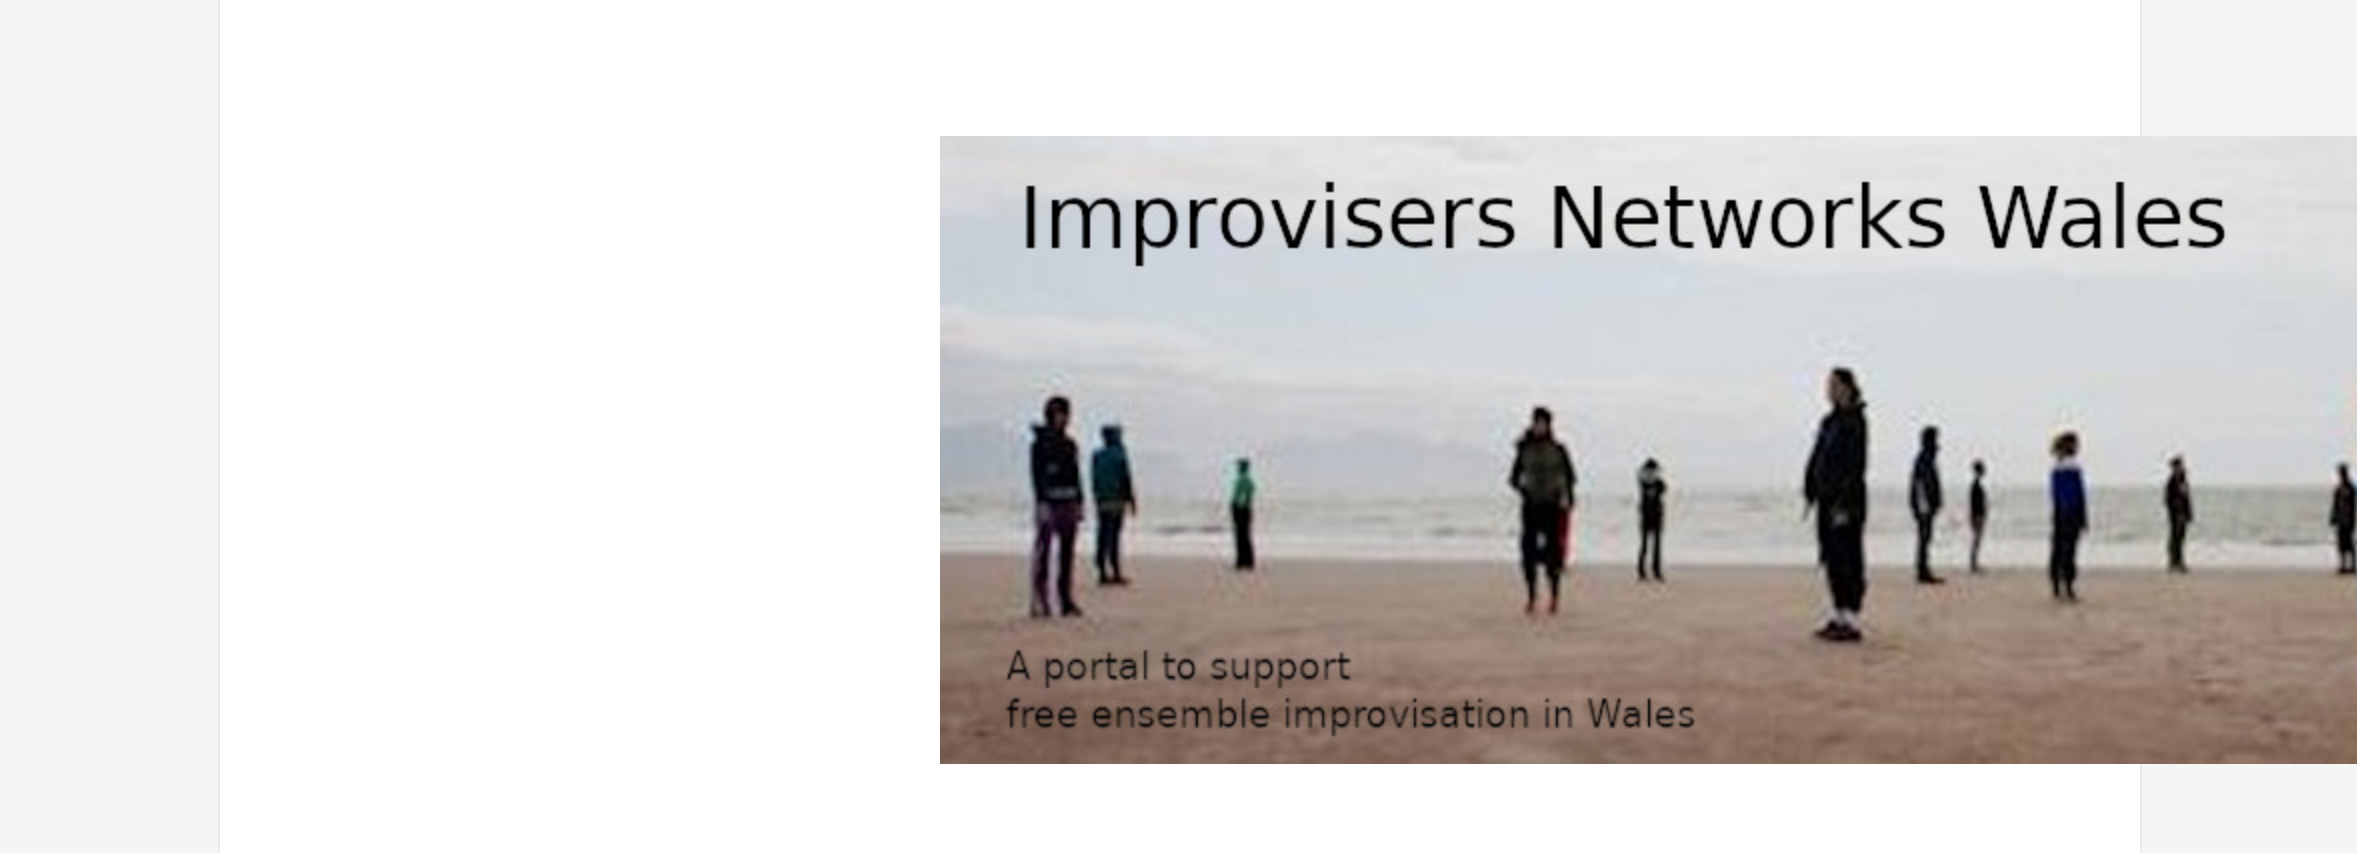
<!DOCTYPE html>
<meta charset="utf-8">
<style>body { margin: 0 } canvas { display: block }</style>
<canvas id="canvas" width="2357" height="853"></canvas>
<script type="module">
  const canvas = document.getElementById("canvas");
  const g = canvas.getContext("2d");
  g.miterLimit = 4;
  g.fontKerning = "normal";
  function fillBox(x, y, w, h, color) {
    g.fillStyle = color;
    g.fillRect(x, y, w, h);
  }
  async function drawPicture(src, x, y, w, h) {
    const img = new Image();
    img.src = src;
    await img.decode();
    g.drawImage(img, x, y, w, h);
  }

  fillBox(0, 0, 2357, 853, "#F5F5F5");
  fillBox(2140, 0, 2, 853, "#EBEBEB");
  fillBox(218, 0, 2, 853, "#EBEBEB");
  fillBox(220, 0, 1920, 853, "#FFFFFF");
  await drawPicture("pic1.png", 940, 136, 1417, 628);
</script>
